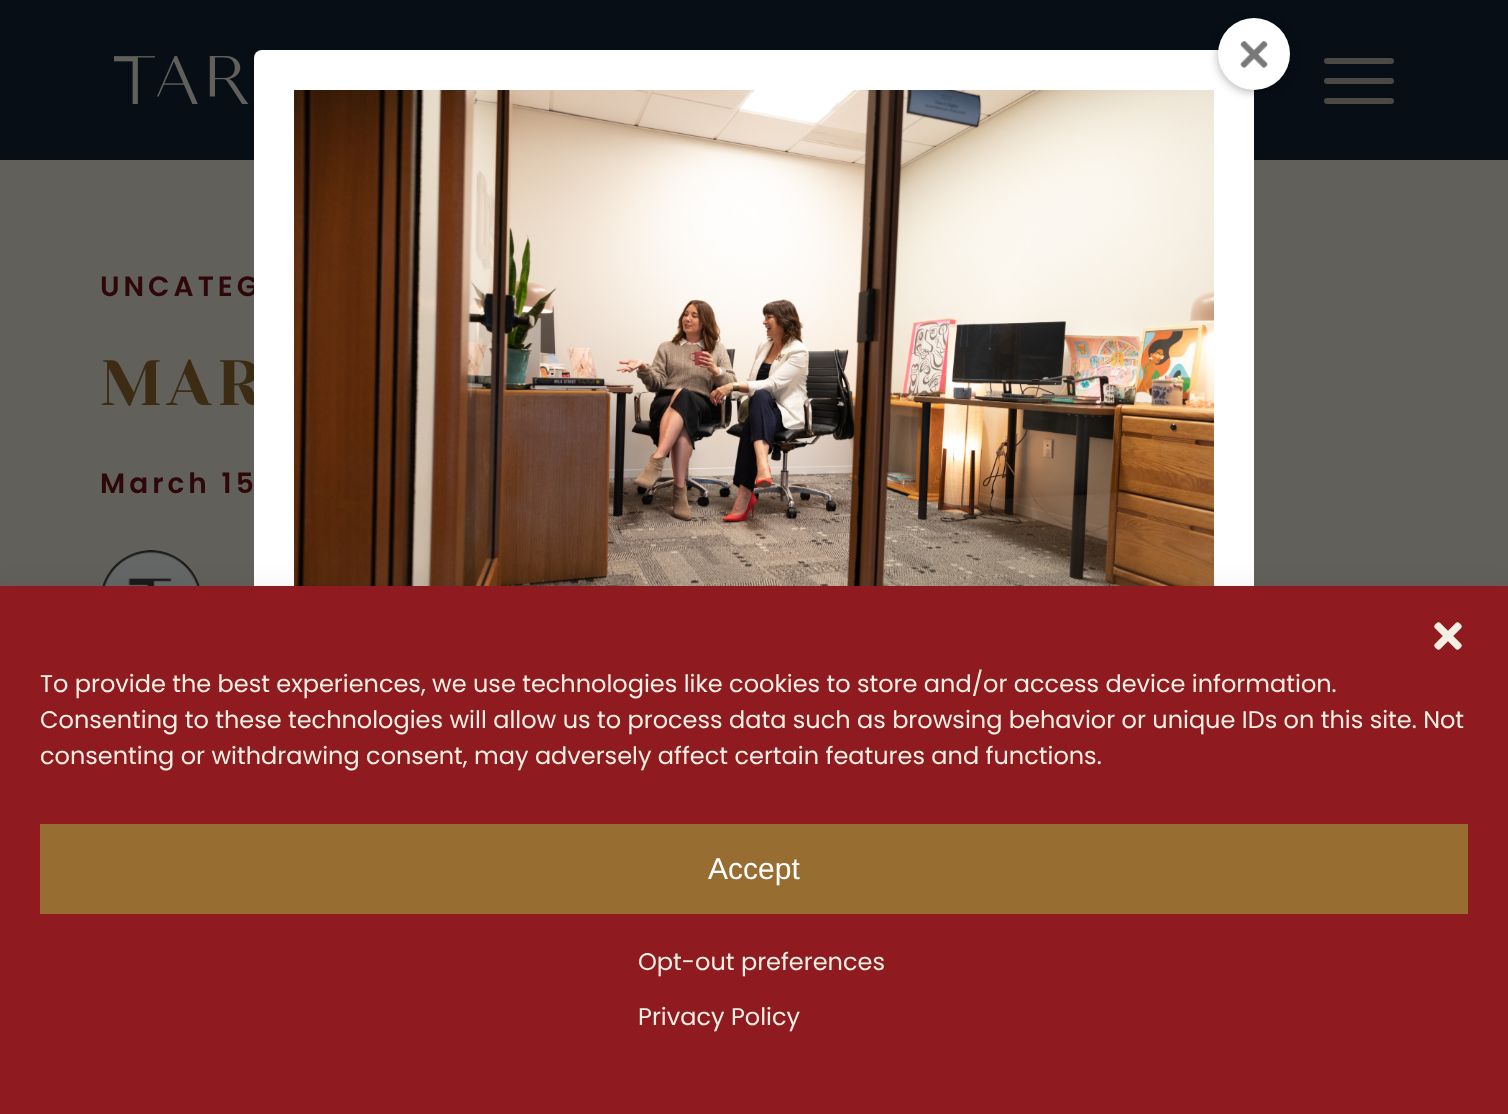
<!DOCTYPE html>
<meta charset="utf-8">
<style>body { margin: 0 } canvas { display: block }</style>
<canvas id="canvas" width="1508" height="1114"></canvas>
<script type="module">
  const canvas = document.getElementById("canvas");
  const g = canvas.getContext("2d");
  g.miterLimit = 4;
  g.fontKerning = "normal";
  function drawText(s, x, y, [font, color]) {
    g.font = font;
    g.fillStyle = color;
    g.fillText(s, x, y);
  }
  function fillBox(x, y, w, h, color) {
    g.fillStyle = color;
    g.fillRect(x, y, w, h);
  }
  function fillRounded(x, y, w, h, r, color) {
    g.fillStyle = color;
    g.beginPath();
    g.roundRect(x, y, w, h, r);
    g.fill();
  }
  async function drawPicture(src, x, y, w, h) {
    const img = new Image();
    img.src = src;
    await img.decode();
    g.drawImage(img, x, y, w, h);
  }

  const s1 = ["600 28px Poppins", "#2E0708"];
  const s2 = ["64px Yeseva One", "#3D2C14"];
  const s3 = ["24px Poppins", "#F3F0E3"];
  const s4 = ["30px Liberation Sans", "#FFFFFF"];

  fillBox(0, 0, 1508, 1114, "#61605B");
  fillBox(0, 0, 1508, 160, "#070E16");
  await drawPicture("pic1.png", 114, 56, 135, 48);
  fillRounded(1324, 78, 70, 6, 3, "#4A4944");
  fillRounded(1324, 58, 70, 6, 3, "#4A4944");
  fillRounded(1324, 98, 70, 6, 3, "#4A4944");
  g.letterSpacing = "4px";
  drawText("UNCATEG", 100, 296, s1);
  g.letterSpacing = "6px";
  drawText("MAR", 100, 405, s2);
  g.letterSpacing = "4px";
  drawText("March 15", 100, 493, s1);
  await drawPicture("pic2.png", 102, 550, 98, 36);
  g.fillStyle = "#FFFFFF";
  g.beginPath();
  g.roundRect(254, 50, 1000, 1064, [8, 8, 0, 0]);
  g.fill();
  g.fillStyle = "rgba(0, 0, 0, 0.3)";
  g.filter = "blur(5px)";
  g.beginPath();
  g.roundRect(1218, 20, 72, 72, 36);
  g.fill();
  g.filter = "none";
  g.fillStyle = "#FFFFFF";
  g.beginPath();
  g.arc(1254, 54, 36, 0, Math.PI * 2);
  g.fill();
  await drawPicture("pic3.png", 1240, 41, 28, 27);
  await drawPicture("pic4.png", 294, 90, 920, 496);
  g.fillStyle = "rgba(0, 0, 0, 0.19)";
  g.filter = "blur(20px)";
  g.beginPath();
  g.rect(0, 606, 1508, 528);
  g.fill();
  g.filter = "none";
  fillBox(0, 586, 1508, 528, "#8F1B21");
  await drawPicture("pic5.png", 1434, 622, 28, 28);
  g.letterSpacing = "0px";
  drawText("To provide the best experiences, we use technologies like cookies to store and/or access device information.", 40, 692, s3);
  drawText("Consenting to these technologies will allow us to process data such as browsing behavior or unique IDs on this site. Not", 40, 728, s3);
  drawText("consenting or withdrawing consent, may adversely affect certain features and functions.", 40, 764, s3);
  fillBox(40, 824, 1428, 90, "#986D31");
  drawText("Accept", 708, 879, s4);
  drawText("Opt-out preferences", 638, 970, s3);
  drawText("Privacy Policy", 638, 1025, s3);
</script>
